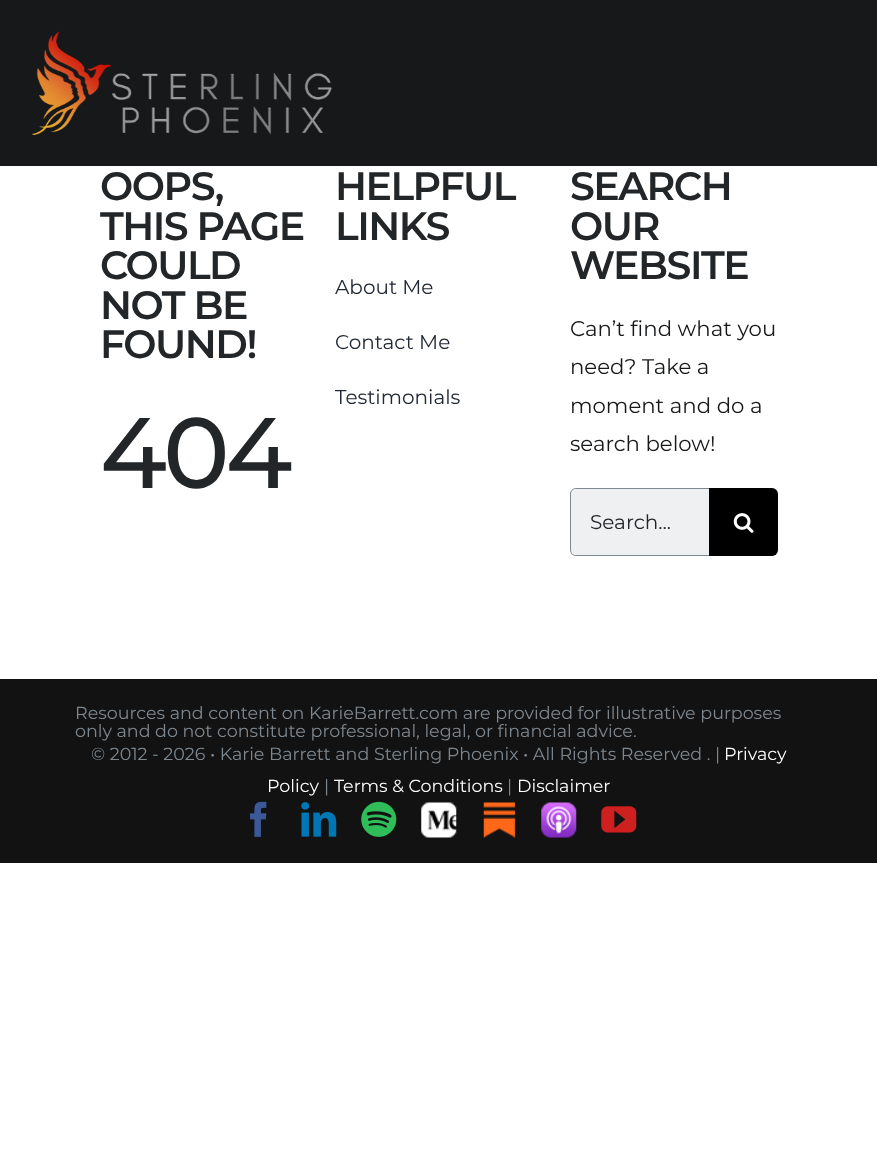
<!DOCTYPE html>
<meta charset="utf-8">
<style>body { margin: 0 } canvas { display: block }</style>
<canvas id="canvas" width="877" height="1170"></canvas>
<script type="module">
  const canvas = document.getElementById("canvas");
  const g = canvas.getContext("2d");
  g.miterLimit = 4;
  g.fontKerning = "normal";
  function drawText(s, x, y, [font, color]) {
    g.font = font;
    g.fillStyle = color;
    g.fillText(s, x, y);
  }
  function fillBox(x, y, w, h, color) {
    g.fillStyle = color;
    g.fillRect(x, y, w, h);
  }
  async function drawPicture(src, x, y, w, h) {
    const img = new Image();
    img.src = src;
    await img.decode();
    g.drawImage(img, x, y, w, h);
  }

  const s1 = ["600 39.5px Montserrat", "#232628"];
  const s2 = ["500 100px Montserrat", "#232628"];
  const s3 = ["20px Montserrat", "#212934"];
  const s4 = ["21.25px Montserrat", "#17181A"];
  const s5 = ["20px Montserrat", "#232628"];
  const s6 = ["17.5px Montserrat", "#7E8890"];
  const s7 = ["17.5px Montserrat", "#FFFFFF"];

  fillBox(0, 0, 877, 1170, "#FFFFFF");
  fillBox(0, 0, 877, 166, "#17181A");
  await drawPicture("pic1.png", 31, 31, 301, 104);
  g.letterSpacing = "-1.5px";
  drawText("OOPS,", 100, 200, s1);
  drawText("THIS PAGE", 100, 240, s1);
  drawText("COULD", 100, 279, s1);
  drawText("NOT BE", 100, 319, s1);
  drawText("FOUND!", 100, 358, s1);
  g.letterSpacing = "-4px";
  drawText("404", 100, 488, s2);
  g.letterSpacing = "-1.5px";
  drawText("HELPFUL", 335, 200, s1);
  drawText("LINKS", 335, 240, s1);
  g.letterSpacing = "0px";
  drawText("About Me", 335, 294, s3);
  drawText("Contact Me", 335, 349, s3);
  drawText("Testimonials", 335, 404, s3);
  g.letterSpacing = "-1.5px";
  drawText("SEARCH", 570, 200, s1);
  drawText("OUR", 570, 240, s1);
  drawText("WEBSITE", 570, 279, s1);
  g.letterSpacing = "0px";
  drawText("Can’t find what you", 570, 336, s4);
  drawText("need? Take a", 570, 374, s4);
  drawText("moment and do a", 570, 413, s4);
  drawText("search below!", 570, 451, s4);
  g.fillStyle = "#EEF0F1";
  g.beginPath();
  g.roundRect(570, 488, 139, 68, [6, 0, 0, 6]);
  g.fill();
  g.fillStyle = "#7E8890";
  g.beginPath();
  g.moveTo(576, 488);
  g.bezierCurveTo(573, 488, 570, 491, 570, 494);
  g.lineTo(570, 550);
  g.bezierCurveTo(570, 553, 573, 556, 576, 556);
  g.lineTo(709, 556);
  g.lineTo(709, 555);
  g.lineTo(576, 555);
  g.bezierCurveTo(573, 555, 571, 553, 571, 550);
  g.lineTo(571, 494);
  g.bezierCurveTo(571, 491, 573, 489, 576, 489);
  g.lineTo(709, 489);
  g.lineTo(709, 488);
  g.closePath();
  g.fill();
  drawText("Search...", 590, 529, s5);
  g.fillStyle = "#000000";
  g.beginPath();
  g.roundRect(709, 488, 69, 68, [0, 6, 6, 0]);
  g.fill();
  await drawPicture("pic2.png", 733, 513, 21, 20);
  fillBox(0, 679, 877, 184, "#121212");
  drawText("Resources and content on KarieBarrett.com are provided for illustrative purposes", 75, 719, s6);
  drawText("only and do not constitute professional, legal, or financial advice.", 75, 737, s6);
  drawText("© 2012 - 2026 • Karie Barrett and Sterling Phoenix • All Rights Reserved . |", 91, 760, s6);
  drawText("Privacy", 724, 760, s7);
  drawText("Policy", 267, 792, s7);
  drawText("|", 324, 792, s6);
  drawText("Terms & Conditions", 334, 792, s7);
  drawText("|", 507, 792, s6);
  drawText("Disclaimer", 517, 792, s7);
  await drawPicture("pic3.png", 250, 801, 17, 36);
  await drawPicture("pic4.png", 301, 802, 36, 35);
  await drawPicture("pic5.png", 361, 801, 36, 36);
  await drawPicture("pic6.png", 421, 802, 36, 36);
  await drawPicture("pic7.png", 483, 802, 33, 36);
  await drawPicture("pic8.png", 541, 802, 36, 36);
  await drawPicture("pic9.png", 601, 806, 36, 27);
</script>
